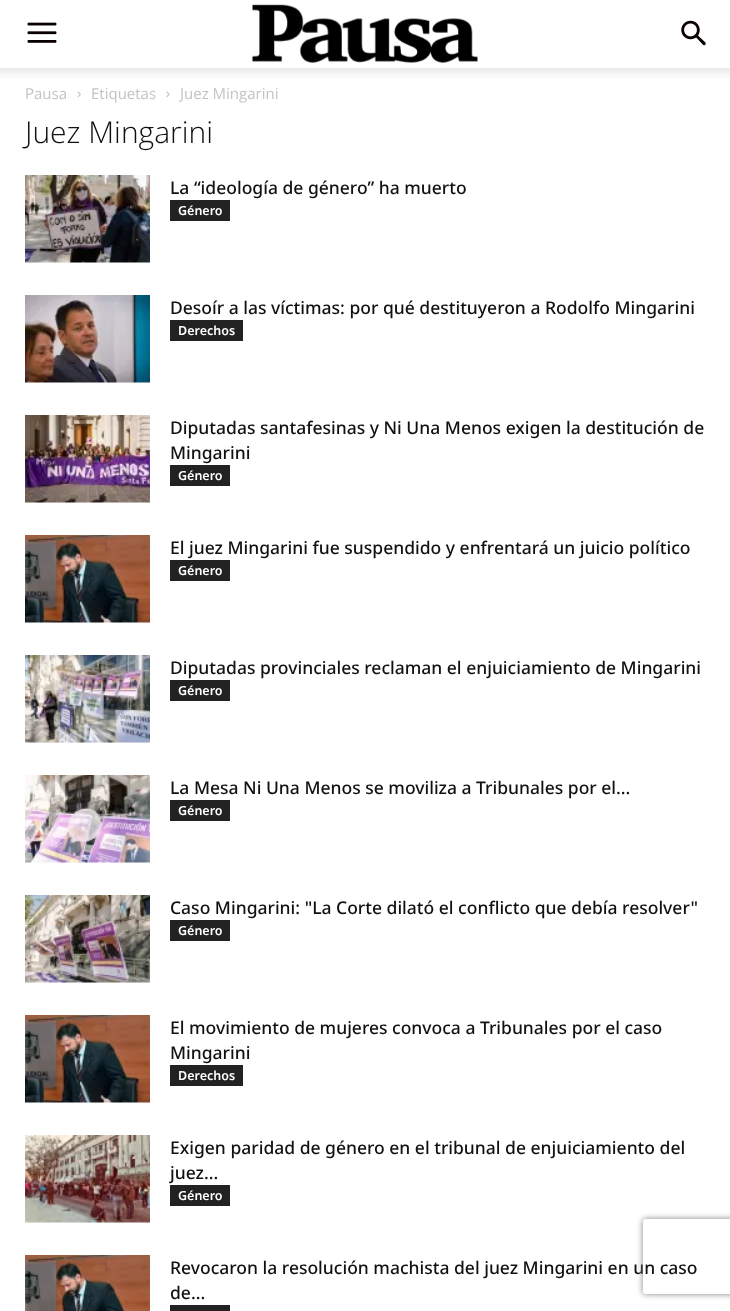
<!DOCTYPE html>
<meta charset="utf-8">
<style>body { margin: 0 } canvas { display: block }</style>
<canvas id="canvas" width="730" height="1311"></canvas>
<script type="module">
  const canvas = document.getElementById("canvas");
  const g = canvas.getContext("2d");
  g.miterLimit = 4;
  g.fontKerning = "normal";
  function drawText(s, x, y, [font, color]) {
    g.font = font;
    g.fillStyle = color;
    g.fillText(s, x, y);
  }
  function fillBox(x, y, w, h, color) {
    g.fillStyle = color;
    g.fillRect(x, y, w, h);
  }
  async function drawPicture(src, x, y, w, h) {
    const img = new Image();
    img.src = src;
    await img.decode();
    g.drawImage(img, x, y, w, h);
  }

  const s1 = ["15px Open Sans", "#C3C3C3"];
  const s2 = ["300 30px Open Sans", "#111111"];
  const s3 = ["500 17.5px Noto Sans", "#111111"];
  const s4 = ["600 12.5px Noto Sans", "#FFFFFF"];

  fillBox(0, 0, 730, 1311, "#FFFFFF");
  await drawPicture("pic1.png", 27, 22, 30, 21);
  await drawPicture("pic2.png", 252, 4, 226, 59);
  await drawPicture("pic3.png", 681, 20, 25, 26);
  await drawPicture("pic4.png", 0, 68, 730, 10);
  drawText("Pausa", 25, 99, s1);
  await drawPicture("pic5.png", 77, 91, 4, 7);
  drawText("Etiquetas", 91, 99, s1);
  await drawPicture("pic6.png", 166, 91, 4, 7);
  drawText("Juez Mingarini", 180, 99, s1);
  drawText("Juez Mingarini", 25, 143, s2);
  await drawPicture("pic7.png", 25, 175, 125, 88);
  drawText("La “ideología de género” ha muerto", 170, 194, s3);
  fillBox(170, 200, 60, 21, "#222222");
  drawText("Género", 178, 215, s4);
  await drawPicture("pic8.png", 25, 295, 125, 88);
  drawText("Desoír a las víctimas: por qué destituyeron a Rodolfo Mingarini", 170, 314, s3);
  fillBox(170, 320, 73, 21, "#222222");
  drawText("Derechos", 178, 335, s4);
  await drawPicture("pic9.png", 25, 415, 125, 88);
  drawText("Diputadas santafesinas y Ni Una Menos exigen la destitución de", 170, 434, s3);
  drawText("Mingarini", 170, 459, s3);
  fillBox(170, 465, 60, 21, "#222222");
  drawText("Género", 178, 480, s4);
  await drawPicture("pic10.png", 25, 535, 125, 88);
  drawText("El juez Mingarini fue suspendido y enfrentará un juicio político", 170, 554, s3);
  fillBox(170, 560, 60, 21, "#222222");
  drawText("Género", 178, 575, s4);
  await drawPicture("pic11.png", 25, 655, 125, 88);
  drawText("Diputadas provinciales reclaman el enjuiciamiento de Mingarini", 170, 674, s3);
  fillBox(170, 680, 60, 21, "#222222");
  drawText("Género", 178, 695, s4);
  await drawPicture("pic12.png", 25, 775, 125, 88);
  drawText("La Mesa Ni Una Menos se moviliza a Tribunales por el...", 170, 794, s3);
  fillBox(170, 800, 60, 21, "#222222");
  drawText("Género", 178, 815, s4);
  await drawPicture("pic13.png", 25, 895, 125, 88);
  drawText("Caso Mingarini: \"La Corte dilató el conflicto que debía resolver\"", 170, 914, s3);
  fillBox(170, 920, 60, 21, "#222222");
  drawText("Género", 178, 935, s4);
  await drawPicture("pic10.png", 25, 1015, 125, 88);
  drawText("El movimiento de mujeres convoca a Tribunales por el caso", 170, 1034, s3);
  drawText("Mingarini", 170, 1059, s3);
  fillBox(170, 1065, 73, 21, "#222222");
  drawText("Derechos", 178, 1080, s4);
  await drawPicture("pic14.png", 25, 1135, 125, 88);
  drawText("Exigen paridad de género en el tribunal de enjuiciamiento del", 170, 1154, s3);
  drawText("juez...", 170, 1179, s3);
  fillBox(170, 1185, 60, 21, "#222222");
  drawText("Género", 178, 1200, s4);
  await drawPicture("pic15.png", 25, 1255, 125, 56);
  drawText("Revocaron la resolución machista del juez Mingarini en un caso", 170, 1274, s3);
  drawText("de...", 170, 1299, s3);
  fillBox(170, 1305, 60, 6, "#222222");
  g.save();
  g.beginPath();
  g.moveTo(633, 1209);
  g.lineTo(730, 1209);
  g.lineTo(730, 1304);
  g.lineTo(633, 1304);
  g.closePath();
  g.moveTo(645.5, 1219);
  g.lineTo(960.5, 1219);
  g.bezierCurveTo(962, 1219, 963, 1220, 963, 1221.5);
  g.lineTo(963, 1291.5);
  g.bezierCurveTo(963, 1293, 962, 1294, 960.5, 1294);
  g.lineTo(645.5, 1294);
  g.bezierCurveTo(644, 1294, 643, 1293, 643, 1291.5);
  g.lineTo(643, 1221.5);
  g.bezierCurveTo(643, 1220, 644, 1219, 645.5, 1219);
  g.closePath();
  g.clip("evenodd");
  g.fillStyle = "#808080";
  g.filter = "blur(3px)";
  g.beginPath();
  g.roundRect(643, 1219, 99, 75, 2.5);
  g.fill();
  g.filter = "none";
  g.restore();
</script>
